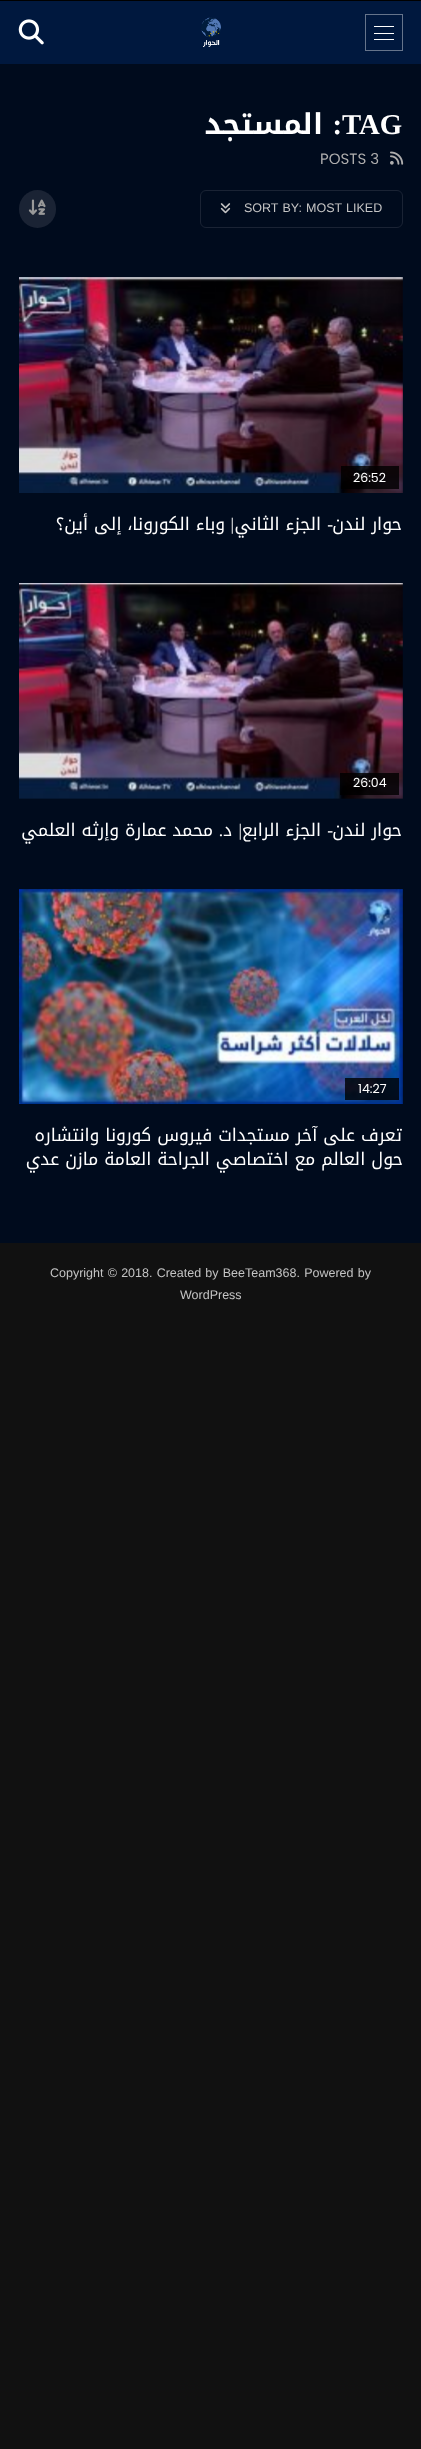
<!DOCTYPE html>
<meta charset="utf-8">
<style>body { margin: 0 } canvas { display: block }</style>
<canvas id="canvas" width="421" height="2449"></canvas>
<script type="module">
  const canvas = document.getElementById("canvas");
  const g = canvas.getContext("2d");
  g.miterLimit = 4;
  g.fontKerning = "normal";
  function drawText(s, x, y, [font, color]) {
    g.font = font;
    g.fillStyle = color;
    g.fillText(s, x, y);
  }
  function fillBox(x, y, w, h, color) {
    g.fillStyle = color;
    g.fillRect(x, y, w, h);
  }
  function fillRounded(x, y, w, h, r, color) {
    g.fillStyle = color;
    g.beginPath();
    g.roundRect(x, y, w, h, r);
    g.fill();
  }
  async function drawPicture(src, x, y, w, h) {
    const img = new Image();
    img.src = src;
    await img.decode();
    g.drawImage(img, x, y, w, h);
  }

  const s1 = ["bold 28.75px Liberation Serif", "#FFFFFF"];
  const s2 = ["bold 28.75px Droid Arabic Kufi", "#FFFFFF"];
  const s3 = ["15px Poppins", "#AEAEAE"];
  const s4 = ["12.5px Liberation Sans", "#C4C4C4"];
  const s5 = ["12.5px Poppins", "#FFFFFF"];
  const s6 = ["17.5px Droid Arabic Kufi", "#FFFFFF"];
  const s7 = ["17.5px Liberation Serif", "#FFFFFF"];

  fillBox(0, 0, 421, 2449, "#111111");
  fillBox(0, 64, 421, 1179, "#000B1D");
  fillBox(0, 0, 421, 1, "#000000");
  fillBox(0, 1, 421, 63, "#00183E");
  g.strokeStyle = "#66748B";
  g.strokeRect(365.5, 14.5, 37, 36);
  fillBox(374, 26, 20, 1, "#FFFFFF");
  fillBox(374, 33, 20, 1, "#FFFFFF");
  fillBox(374, 39, 20, 1, "#FFFFFF");
  await drawPicture("pic1.png", 201, 17, 20, 30);
  await drawPicture("pic2.png", 18, 19, 26, 26);
  drawText("TAG", 342, 134, s1);
  g.direction = "rtl";
  drawText(":", 342, 134, s1);
  drawText("المستجد", 323, 134, s2);
  await drawPicture("pic3.png", 390, 151, 14, 14);
  g.direction = "ltr";
  drawText("POSTS 3", 320, 164, s3);
  g.beginPath();
  g.roundRect(200.5, 190.5, 202, 37, 5.5);
  g.strokeStyle = "#1A2334";
  g.stroke();
  g.wordSpacing = "0.75px";
  drawText("MOST LIKED", 306, 212, s4);
  drawText("SORT BY:", 244, 212, s4);
  await drawPicture("pic4.png", 220, 203, 11, 11);
  fillRounded(19, 190, 37, 38, 18.5, "#1A2334");
  await drawPicture("pic5.png", 28, 199, 18, 16);
  await drawPicture("pic6.png", 19, 277, 384, 216);
  fillBox(341, 466, 58, 23, "rgba(0, 0, 0, 0.8)");
  g.wordSpacing = "0px";
  drawText("26:52", 353, 482, s5);
  g.direction = "rtl";
  drawText("حوار لندن", 402, 530, s6);
  drawText("-", 333, 530, s7);
  drawText("الجزء الثاني", 321, 530, s6);
  drawText("|", 234, 530, s7);
  drawText("وباء الكورونا، إلى أين؟", 225, 530, s6);
  await drawPicture("pic7.png", 19, 583, 384, 216);
  fillBox(340, 773, 59, 22, "rgba(0, 0, 0, 0.8)");
  g.direction = "ltr";
  drawText("26:04", 353, 787, s5);
  g.direction = "rtl";
  drawText("حوار لندن", 402, 836, s6);
  drawText("-", 333, 836, s7);
  drawText("الجزء الرابع", 321, 836, s6);
  drawText("|", 242, 836, s7);
  drawText("د", 232, 836, s6);
  drawText("محمد عمارة وإرثه العلمي", 213, 836, s6);
  drawText(".", 223, 836, s7);
  await drawPicture("pic8.png", 19, 889, 384, 215);
  fillBox(345, 1078, 54, 22, "rgba(0, 0, 0, 0.8)");
  g.direction = "ltr";
  drawText("14:27", 358, 1093, s5);
  g.direction = "rtl";
  drawText("تعرف على آخر مستجدات فيروس كورونا وانتشاره", 402, 1141, s6);
  drawText("حول العالم مع اختصاصي الجراحة العامة مازن عدي", 403, 1165, s6);
  g.wordSpacing = "0.75px";
  g.direction = "ltr";
  drawText("Copyright © 2018. Created by BeeTeam368. Powered by", 50, 1277, s4);
  g.wordSpacing = "0px";
  drawText("WordPress", 180, 1299, s4);
</script>
